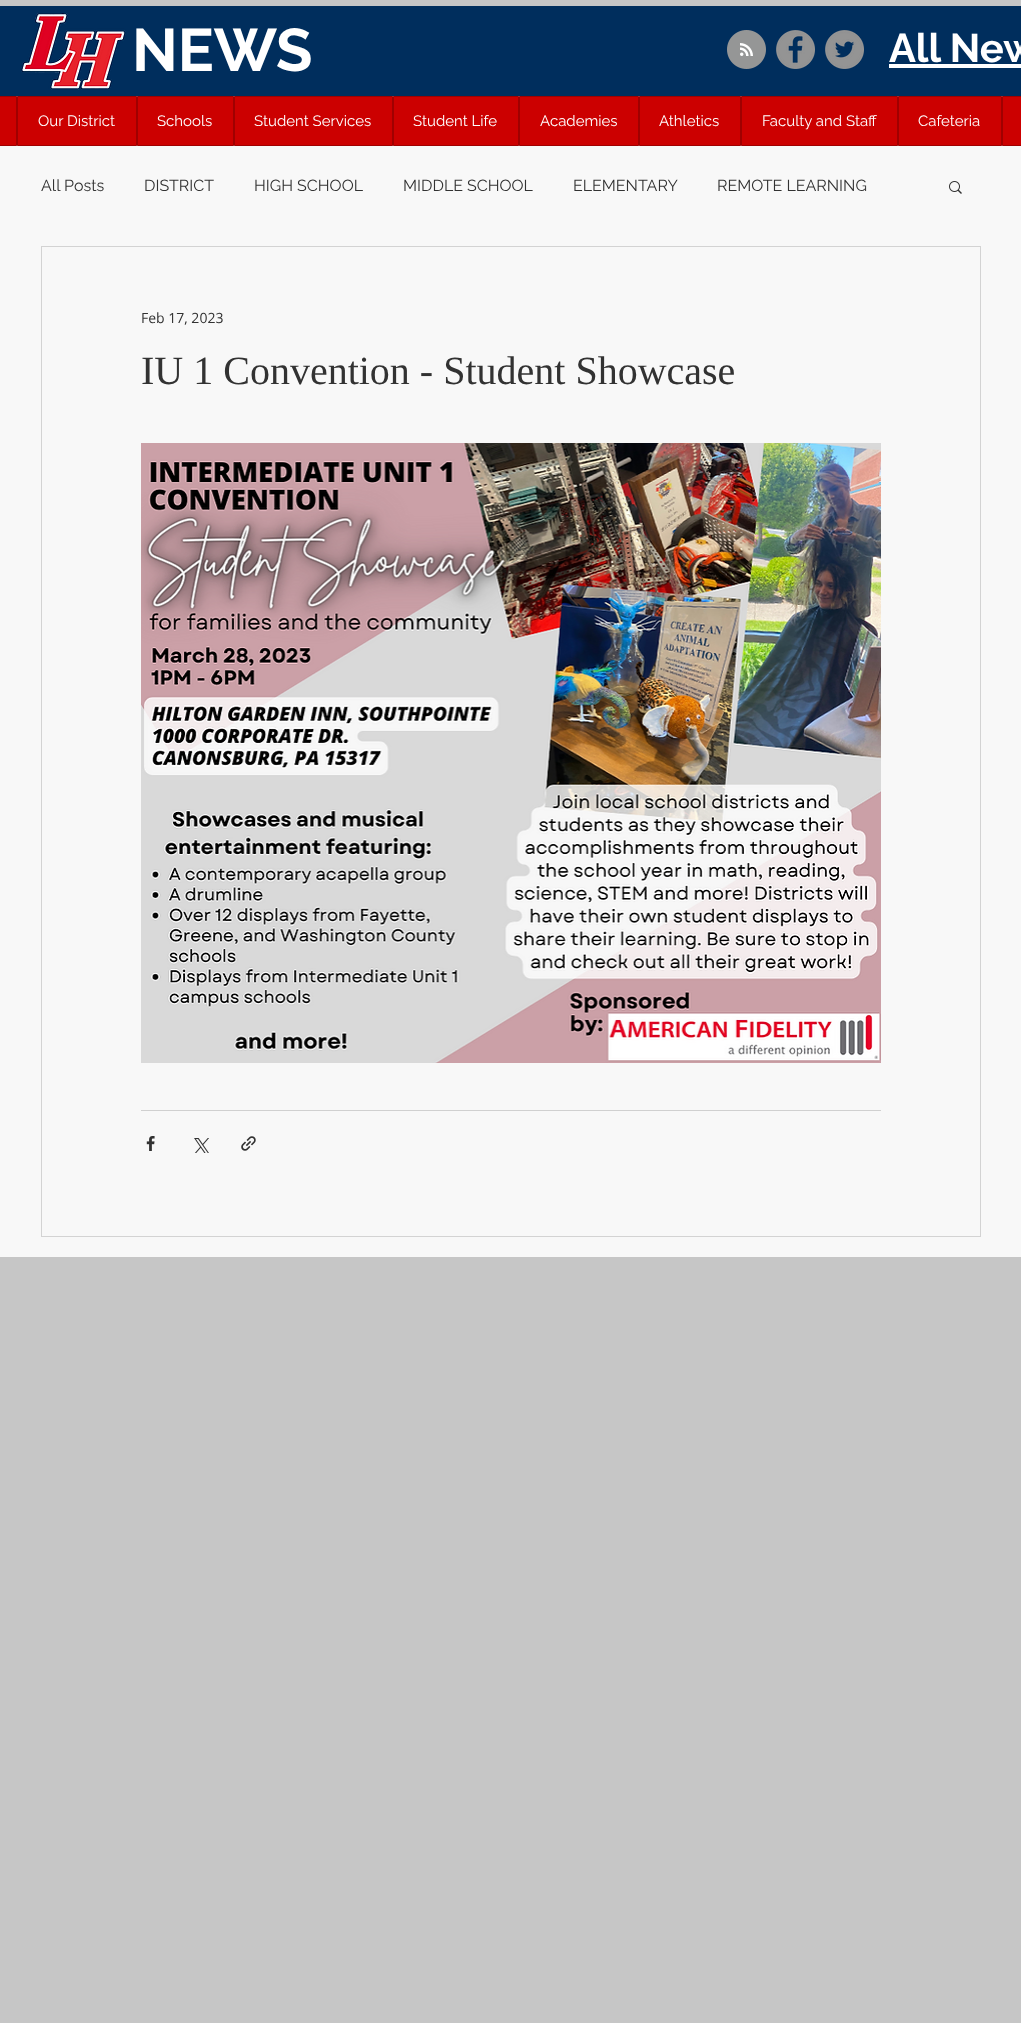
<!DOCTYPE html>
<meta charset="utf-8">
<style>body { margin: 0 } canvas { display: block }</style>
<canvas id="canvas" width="1021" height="2023"></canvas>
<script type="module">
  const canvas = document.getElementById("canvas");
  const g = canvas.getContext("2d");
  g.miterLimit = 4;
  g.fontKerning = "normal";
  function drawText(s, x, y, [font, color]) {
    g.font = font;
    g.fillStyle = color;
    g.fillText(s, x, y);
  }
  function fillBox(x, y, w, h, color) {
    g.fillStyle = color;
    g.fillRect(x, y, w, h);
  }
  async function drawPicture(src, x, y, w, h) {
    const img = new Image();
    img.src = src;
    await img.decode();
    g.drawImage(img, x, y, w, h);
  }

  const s1 = ["bold 60px Raleway", "#FFFFFF"];
  const s2 = ["bold 40px Raleway", "#FFFFFF"];
  const s3 = ["15px Raleway", "#FFFFFF"];
  const s4 = ["16px Raleway", "#323232"];
  const s5 = ["14px Open Sans", "#323232"];
  const s6 = ["40px Liberation Serif", "#323232"];

  fillBox(0, 0, 1021, 2023, "#C6C6C6");
  fillBox(0, 6, 1021, 90, "#002E5D");
  await drawPicture("pic1.png", 21, 13, 105, 77);
  drawText("NEWS", 132, 71, s1);
  await drawPicture("pic2.png", 727, 30, 39, 39);
  await drawPicture("pic3.png", 776, 30, 39, 39);
  await drawPicture("pic4.png", 825, 30, 39, 39);
  drawText("All New", 889, 62, s2);
  fillBox(889, 64, 132, 4, "#FFFFFF");
  g.fillStyle = "#CC0000";
  g.beginPath();
  g.rect(-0.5, 96.5, 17, 49);
  g.fill();
  g.strokeStyle = "#A00000";
  g.stroke();
  g.beginPath();
  g.rect(17.5, 96.5, 119, 49);
  g.fill();
  g.stroke();
  drawText("Our District", 38, 126, s3);
  g.fillStyle = "#CC0000";
  g.beginPath();
  g.rect(137.5, 96.5, 96, 49);
  g.fill();
  g.stroke();
  drawText("Schools", 157, 126, s3);
  g.fillStyle = "#CC0000";
  g.beginPath();
  g.rect(234.5, 96.5, 158, 49);
  g.fill();
  g.stroke();
  drawText("Student Services", 254, 126, s3);
  g.fillStyle = "#CC0000";
  g.beginPath();
  g.rect(393.5, 96.5, 125, 49);
  g.fill();
  g.stroke();
  drawText("Student Life", 413, 126, s3);
  g.fillStyle = "#CC0000";
  g.beginPath();
  g.rect(519.5, 96.5, 119, 49);
  g.fill();
  g.stroke();
  drawText("Academies", 540, 126, s3);
  g.fillStyle = "#CC0000";
  g.beginPath();
  g.rect(639.5, 96.5, 101, 49);
  g.fill();
  g.stroke();
  drawText("Athletics", 659, 126, s3);
  g.fillStyle = "#CC0000";
  g.beginPath();
  g.rect(741.5, 96.5, 156, 49);
  g.fill();
  g.stroke();
  drawText("Faculty and Staff", 762, 126, s3);
  g.fillStyle = "#CC0000";
  g.beginPath();
  g.rect(898.5, 96.5, 103, 49);
  g.fill();
  g.stroke();
  drawText("Cafeteria", 918, 126, s3);
  g.fillStyle = "#CC0000";
  g.beginPath();
  g.rect(1002.5, 96.5, 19, 49);
  g.fill();
  g.stroke();
  fillBox(0, 146, 1021, 1111, "#F8F8F8");
  drawText("All Posts", 41, 191, s4);
  drawText("DISTRICT", 144, 191, s4);
  drawText("HIGH SCHOOL", 254, 191, s4);
  drawText("MIDDLE SCHOOL", 403, 191, s4);
  drawText("ELEMENTARY", 573, 191, s4);
  drawText("REMOTE LEARNING", 717, 191, s4);
  await drawPicture("pic5.png", 949, 181, 13, 13);
  g.strokeStyle = "#D3D3D3";
  g.strokeRect(41.5, 246.5, 939, 990);
  drawText("Feb 17, 2023", 141, 323, s5);
  drawText("IU 1 Convention - Student Showcase", 141, 384, s6);
  await drawPicture("pic6.png", 141, 443, 740, 620);
  fillBox(141, 1110, 740, 1, "#D0D0D0");
  await drawPicture("pic7.png", 146, 1136, 9, 15);
  await drawPicture("pic8.png", 194, 1138, 15, 15);
  await drawPicture("pic9.png", 241, 1136, 15, 15);
</script>
